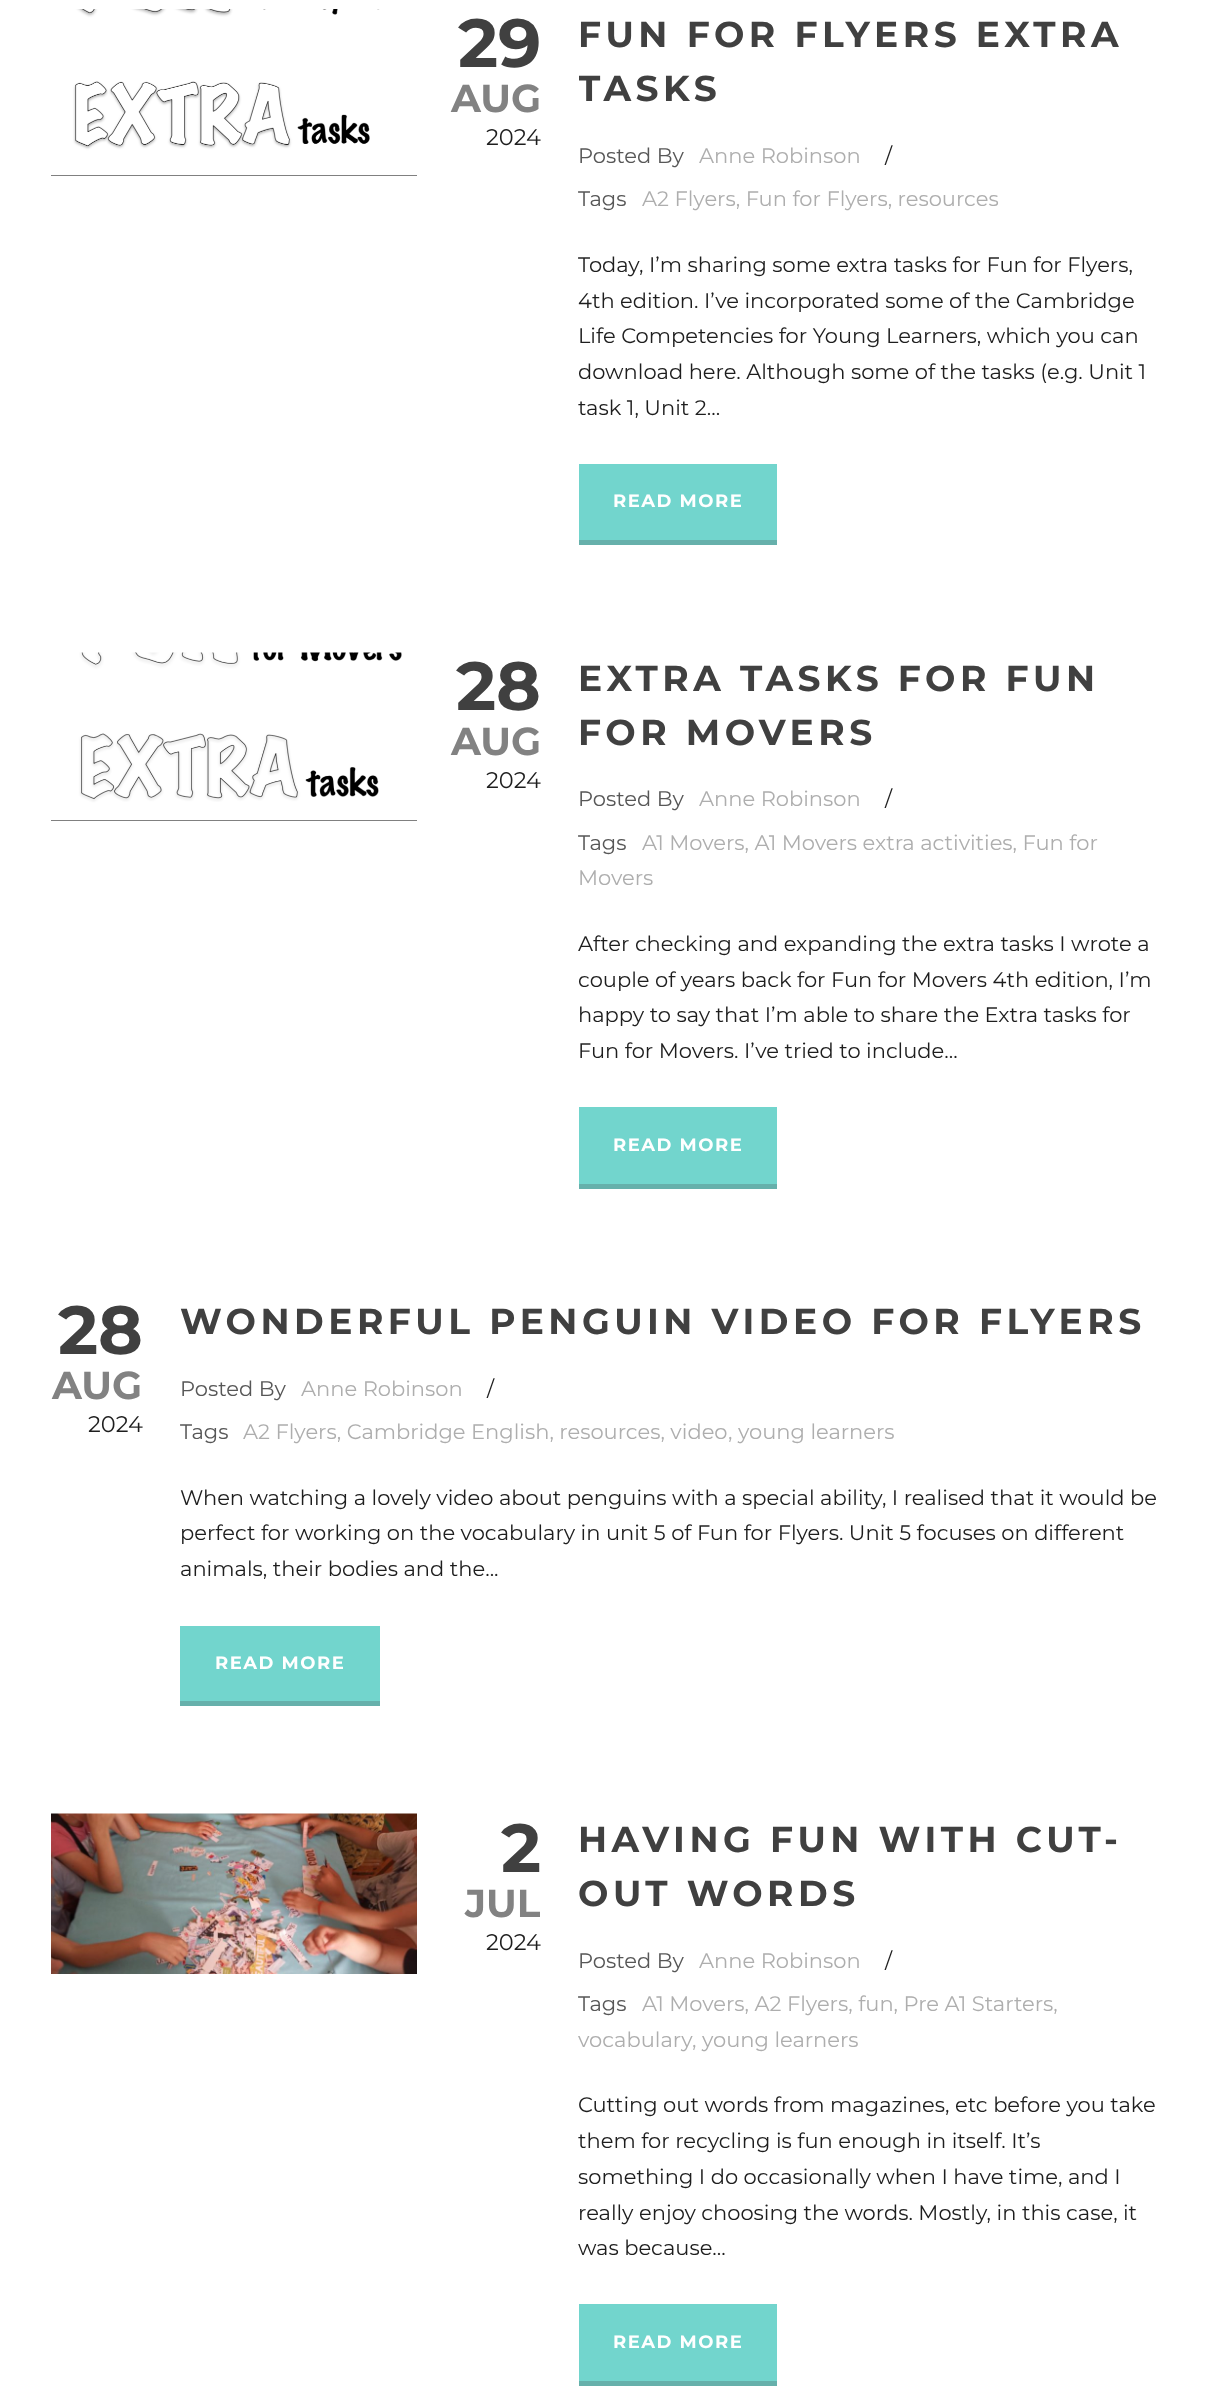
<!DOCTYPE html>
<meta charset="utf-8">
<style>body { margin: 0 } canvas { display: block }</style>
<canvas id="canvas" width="1208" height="2398"></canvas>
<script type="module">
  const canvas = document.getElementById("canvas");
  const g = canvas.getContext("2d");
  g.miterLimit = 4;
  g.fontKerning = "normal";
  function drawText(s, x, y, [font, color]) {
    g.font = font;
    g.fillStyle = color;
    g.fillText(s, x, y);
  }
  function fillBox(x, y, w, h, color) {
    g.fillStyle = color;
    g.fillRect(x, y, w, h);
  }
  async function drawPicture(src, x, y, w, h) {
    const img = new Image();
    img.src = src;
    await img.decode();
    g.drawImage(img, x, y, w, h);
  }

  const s1 = ["bold 68px Montserrat", "#404040"];
  const s2 = ["bold 39px Montserrat", "#828282"];
  const s3 = ["22.5px Montserrat", "#1E1E1E"];
  const s4 = ["bold 36px Montserrat", "#404040"];
  const s5 = ["21px Montserrat", "#575757"];
  const s6 = ["21px Montserrat", "#AEAEAE"];
  const s7 = ["21px Montserrat", "#1E1E1E"];
  const s8 = ["bold 18px Montserrat", "#FFFFFF"];

  fillBox(0, 0, 1208, 2398, "#FFFFFF");
  fillBox(51, 175, 366, 1, "#000000");
  await drawPicture("pic1.png", 51, 9, 366, 167);
  drawText("29", 458, 67, s1);
  drawText("AUG", 451, 112, s2);
  drawText("2024", 486, 145, s3);
  g.letterSpacing = "4.5px";
  drawText("FUN FOR FLYERS EXTRA", 578, 47, s4);
  g.save();
  g.beginPath();
  g.rect(579, 9, 579, 569);
  g.clip();
  drawText("TASKS", 578, 101, s4);
  g.restore();
  g.letterSpacing = "0px";
  drawText("Posted By", 578, 163, s5);
  drawText("Anne Robinson", 699, 163, s6);
  drawText("/", 885, 163, s7);
  drawText("Tags", 578, 206, s5);
  drawText("A2 Flyers, Fun for Flyers, resources", 642, 206, s6);
  drawText("Today, I’m sharing some extra tasks for Fun for Flyers,", 578, 272, s7);
  drawText("4th edition. I’ve incorporated some of the Cambridge", 578, 308, s7);
  drawText("Life Competencies for Young Learners, which you can", 578, 343, s7);
  drawText("download here. Although some of the tasks (e.g. Unit 1", 578, 379, s7);
  drawText("task 1, Unit 2...", 578, 415, s7);
  fillBox(579, 464, 198, 76, "#72D5CD");
  fillBox(579, 540, 198, 5, "#66B0AB");
  g.letterSpacing = "1.5px";
  drawText("READ MORE", 613, 507, s8);
  fillBox(51, 820, 366, 1, "#000000");
  await drawPicture("pic2.png", 51, 652, 366, 169);
  g.letterSpacing = "0px";
  drawText("28", 456, 710, s1);
  drawText("AUG", 451, 755, s2);
  drawText("2024", 486, 788, s3);
  g.letterSpacing = "4.5px";
  drawText("EXTRA TASKS FOR FUN", 578, 691, s4);
  drawText("FOR MOVERS", 578, 745, s4);
  g.letterSpacing = "0px";
  drawText("Posted By", 578, 806, s5);
  drawText("Anne Robinson", 699, 806, s6);
  drawText("/", 885, 806, s7);
  drawText("Tags", 578, 850, s5);
  drawText("A1 Movers, A1 Movers extra activities, Fun for", 642, 850, s6);
  drawText("Movers", 578, 885, s6);
  drawText("After checking and expanding the extra tasks I wrote a", 578, 951, s7);
  drawText("couple of years back for Fun for Movers 4th edition, I’m", 578, 987, s7);
  drawText("happy to say that I’m able to share the Extra tasks for", 578, 1022, s7);
  drawText("Fun for Movers. I’ve tried to include...", 578, 1058, s7);
  fillBox(579, 1107, 198, 77, "#72D5CD");
  fillBox(579, 1184, 198, 5, "#66B0AB");
  g.letterSpacing = "1.5px";
  drawText("READ MORE", 613, 1151, s8);
  g.letterSpacing = "0px";
  drawText("28", 58, 1354, s1);
  drawText("AUG", 52, 1399, s2);
  drawText("2024", 88, 1432, s3);
  g.letterSpacing = "4.5px";
  drawText("WONDERFUL PENGUIN VIDEO FOR FLYERS", 180, 1334, s4);
  g.letterSpacing = "0px";
  drawText("Posted By", 180, 1396, s5);
  drawText("Anne Robinson", 301, 1396, s6);
  drawText("/", 487, 1396, s7);
  drawText("Tags", 180, 1439, s5);
  drawText("A2 Flyers, Cambridge English, resources, video", 243, 1439, s6);
  drawText(", young learners", 728, 1439, s6);
  drawText("When watching a lovely video about penguins with a special ability, I realised that it would be", 180, 1505, s7);
  drawText("perfect for working on the vocabulary in unit 5 of Fun for Flyers. Unit 5 focuses on different", 180, 1540, s7);
  drawText("animals, their bodies and the...", 180, 1576, s7);
  fillBox(180, 1626, 200, 75, "#72D5CD");
  fillBox(180, 1701, 200, 5, "#66B0AB");
  g.letterSpacing = "1.5px";
  drawText("READ MORE", 215, 1669, s8);
  await drawPicture("pic3.png", 51, 1813, 366, 161);
  g.letterSpacing = "0px";
  drawText("2", 501, 1872, s1);
  drawText("JUL", 465, 1917, s2);
  drawText("2024", 486, 1950, s3);
  g.letterSpacing = "4.5px";
  drawText("HAVING FUN WITH CUT-", 578, 1852, s4);
  drawText("OUT WORDS", 578, 1906, s4);
  g.letterSpacing = "0px";
  drawText("Posted By", 578, 1968, s5);
  drawText("Anne Robinson", 699, 1968, s6);
  drawText("/", 885, 1968, s7);
  drawText("Tags", 578, 2011, s5);
  drawText("A1 Movers, A2 Flyers, fun, Pre A1 Starters,", 642, 2011, s6);
  drawText("vocabulary", 578, 2047, s6);
  drawText(", young learners", 692, 2047, s6);
  drawText("Cutting out words from magazines, etc before you take", 578, 2112, s7);
  drawText("them for recycling is fun enough in itself. It’s", 578, 2148, s7);
  drawText("something I do occasionally when I have time, and I", 578, 2184, s7);
  drawText("really enjoy choosing the words. Mostly, in this case, it", 578, 2220, s7);
  drawText("was because...", 578, 2255, s7);
  fillBox(579, 2304, 198, 77, "#72D5CD");
  fillBox(579, 2381, 198, 5, "#66B0AB");
  g.letterSpacing = "1.5px";
  drawText("READ MORE", 613, 2348, s8);
</script>
